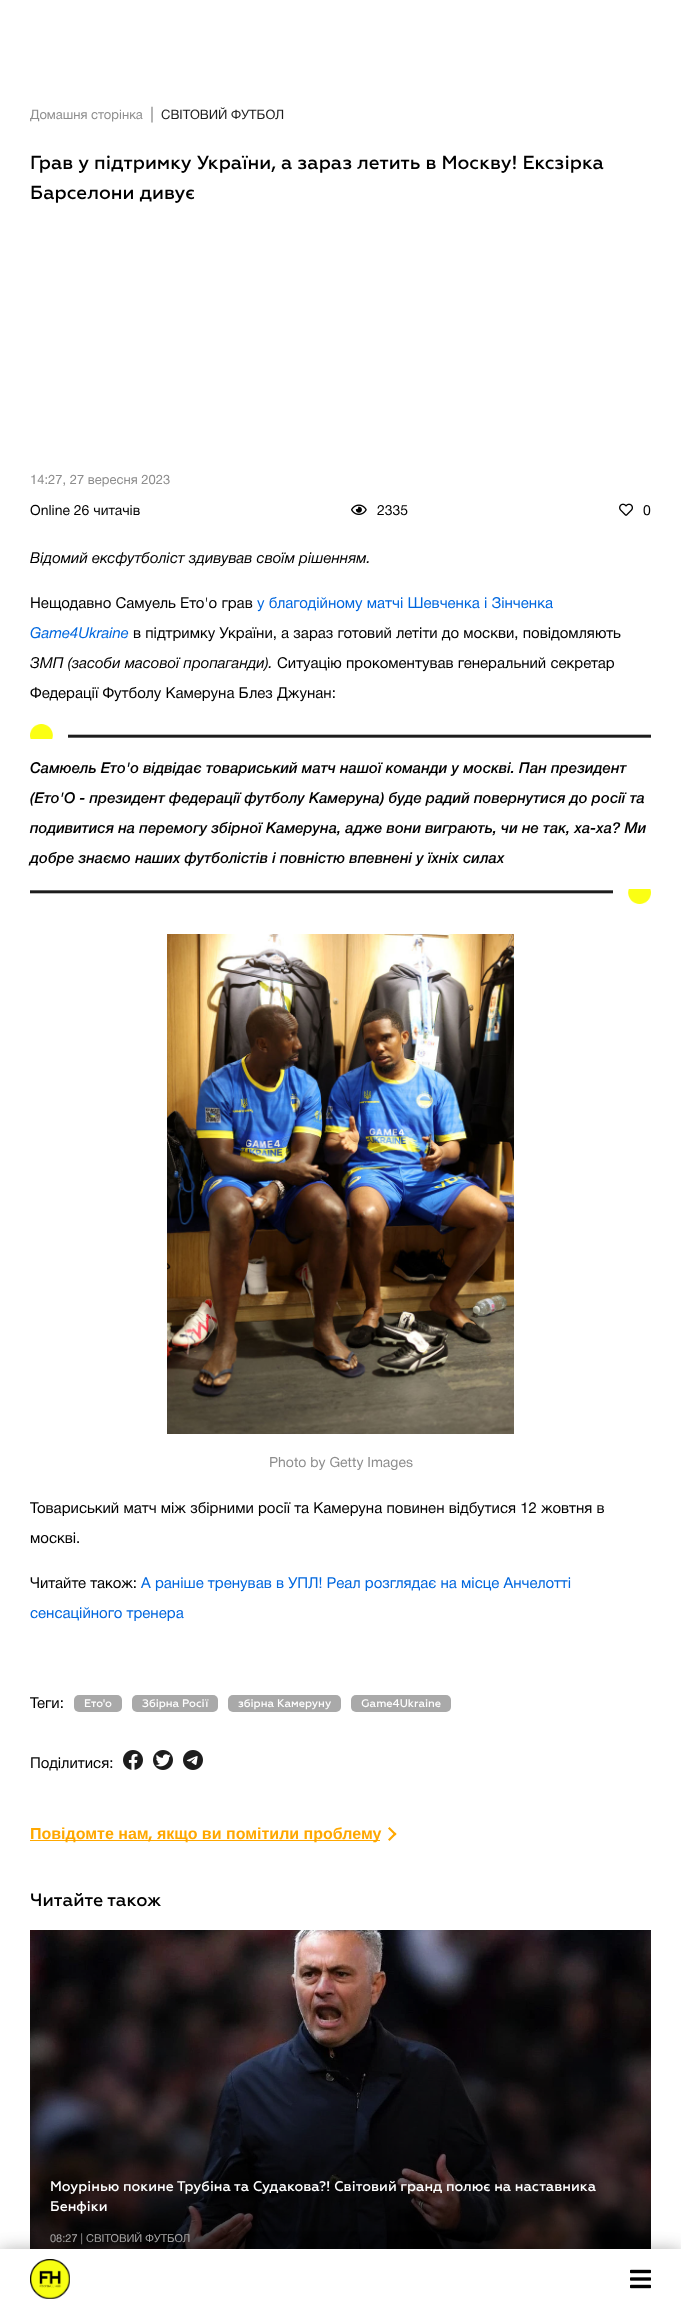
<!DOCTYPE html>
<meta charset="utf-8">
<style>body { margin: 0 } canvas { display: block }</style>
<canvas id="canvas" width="681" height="2309"></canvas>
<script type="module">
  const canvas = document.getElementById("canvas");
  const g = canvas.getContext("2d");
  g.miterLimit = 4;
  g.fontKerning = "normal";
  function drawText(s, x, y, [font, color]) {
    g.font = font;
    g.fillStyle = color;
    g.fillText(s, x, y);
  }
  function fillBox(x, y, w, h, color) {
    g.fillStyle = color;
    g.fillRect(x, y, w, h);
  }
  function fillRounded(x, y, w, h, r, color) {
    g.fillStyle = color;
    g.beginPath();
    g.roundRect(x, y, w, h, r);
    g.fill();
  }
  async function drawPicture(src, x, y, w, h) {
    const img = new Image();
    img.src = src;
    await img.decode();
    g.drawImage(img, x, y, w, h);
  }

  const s1 = ["13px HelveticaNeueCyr", "#8D8D8D"];
  const s2 = ["16px DejaVu Sans", "#8D8D8D"];
  const s3 = ["13px HelveticaNeueCyr", "#1D1D1D"];
  const s4 = ["500 19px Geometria", "#000000"];
  const s5 = ["14px HelveticaNeueCyr", "#000000"];
  const s6 = ["italic 500 15px HelveticaNeueCyr", "#000000"];
  const s7 = ["15px HelveticaNeueCyr", "#000000"];
  const s8 = ["15px HelveticaNeueCyr", "#0067DF"];
  const s9 = ["italic 500 15px HelveticaNeueCyr", "#0067DF"];
  const s10 = ["italic 500 15px 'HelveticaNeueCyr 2'", "#000000"];
  const s11 = ["14px HelveticaNeueCyr", "#8D8D8D"];
  const s12 = ["500 11px Geometria", "#FFFFFF"];
  const s13 = ["bold 16px Liberation Sans", "#FFA800"];
  const s14 = ["bold 16px Geometria", "#FFA800"];
  const s15 = ["500 18px Geometria", "#000000"];
  const s16 = ["500 14px Geometria", "#FFFFFF"];
  const s17 = ["11px HelveticaNeueCyr", "#ABAAAA"];

  fillBox(0, 0, 681, 2309, "#FFFFFF");
  drawText("Домашня сторінка", 30, 119, s1);
  drawText("∣", 148, 119, s2);
  drawText("СВІТОВИЙ ФУТБОЛ", 161, 119, s3);
  drawText("Грав у підтримку України, а зараз летить в Москву! Ексзірка", 30, 169, s4);
  drawText("Барселони дивує", 30, 199, s4);
  drawText("14:27, 27 вересня 2023", 30, 484, s1);
  drawText("Online 26 читачів", 30, 515, s5);
  await drawPicture("pic1.png", 351, 504, 16, 11);
  drawText("2335", 377, 515, s5);
  await drawPicture("pic2.png", 619, 503, 14, 13);
  drawText("0", 643, 515, s5);
  drawText("Відомий ексфутболіст здивував своїм рішенням.", 30, 563, s6);
  drawText("Нещодавно Самуель Ето'о грав", 30, 608, s7);
  drawText("у благодійному матчі Шевченка і Зінченка", 257, 608, s8);
  drawText("Game4Ukraine", 30, 638, s9);
  drawText("в підтримку України, а зараз готовий летіти до москви, повідомляють", 133, 638, s7);
  drawText("ЗМП (засоби масової пропаганди).", 30, 668, s6);
  drawText("Ситуацію прокоментував генеральний секретар", 277, 668, s7);
  drawText("Федерації Футболу Камеруна Блез Джунан:", 30, 698, s7);
  await drawPicture("pic3.png", 30, 724, 621, 15);
  drawText("Самюель Ето'о відвідає товариський матч нашої команди у москві. Пан президент", 30, 773, s10);
  drawText("(Ето'О - президент федерації футболу Камеруна) буде радий повернутися до росії та", 30, 803, s10);
  drawText("подивитися на перемогу збірної Камеруна, адже вони виграють, чи не так, ха-ха? Ми", 30, 833, s10);
  drawText("добре знаємо наших футболістів і повністю впевнені у їхніх силах", 30, 863, s10);
  await drawPicture("pic4.png", 30, 889, 621, 15);
  await drawPicture("pic5.png", 167, 934, 347, 500);
  drawText("Photo by Getty Images", 269, 1467, s11);
  drawText("Товариський матч між збірними росії та Камеруна повинен відбутися 12 жовтня в", 30, 1513, s7);
  drawText("москві.", 30, 1543, s7);
  drawText("Читайте також:", 30, 1588, s7);
  drawText("А раніше тренував в УПЛ! Реал розглядає на місце Анчелотті", 141, 1588, s8);
  drawText("сенсаційного тренера", 30, 1618, s8);
  drawText("Теги:", 30, 1708, s7);
  fillRounded(74, 1695, 48, 17, 5, "#A9A9A9");
  drawText("Ето'о", 84, 1707, s12);
  fillRounded(132, 1695, 86, 17, 5, "#A9A9A9");
  drawText("Збірна Росії", 142, 1707, s12);
  fillRounded(228, 1695, 113, 17, 5, "#A9A9A9");
  drawText("збірна Камеруну", 238, 1707, s12);
  fillRounded(351, 1695, 100, 17, 5, "#A9A9A9");
  drawText("Game4Ukraine", 361, 1707, s12);
  drawText("Поділитися:", 30, 1768, s7);
  await drawPicture("pic6.png", 123, 1750, 20, 20);
  await drawPicture("pic7.png", 153, 1750, 20, 20);
  await drawPicture("pic8.png", 183, 1750, 20, 20);
  fillBox(30, 1840, 350, 1, "#FFA800");
  drawText("Повідомте нам", 30, 1839, s13);
  drawText(",", 148, 1839, s14);
  drawText("якщо ви помітили проблему", 157, 1839, s13);
  g.beginPath();
  g.moveTo(389.5, 1827);
  g.lineTo(396.5, 1834);
  g.lineTo(395, 1835.5);
  g.lineTo(388, 1828.5);
  g.closePath();
  g.fill();
  g.beginPath();
  g.moveTo(395, 1832.5);
  g.lineTo(396.5, 1834);
  g.lineTo(389.5, 1841);
  g.lineTo(388, 1839.5);
  g.closePath();
  g.fill();
  drawText("Читайте також", 30, 1906, s15);
  await drawPicture("pic9.png", 30, 1930, 621, 319);
  drawText("Моурінью покине Трубіна та Судакова?! Світовий гранд полює на наставника", 50, 2191, s16);
  drawText("Бенфіки", 50, 2211, s16);
  drawText("08:27 | СВІТОВИЙ ФУТБОЛ", 50, 2242, s17);
  g.fillStyle = "rgba(0, 0, 0, 0.2)";
  g.filter = "blur(10px)";
  g.beginPath();
  g.rect(0, 2253, 681, 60);
  g.fill();
  g.filter = "none";
  g.fillStyle = "rgba(0, 0, 0, 0.25)";
  g.filter = "blur(10px)";
  g.beginPath();
  g.rect(0, 2253, 681, 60);
  g.fill();
  g.filter = "none";
  fillBox(0, 2249, 681, 60, "#FFFFFF");
  await drawPicture("pic10.png", 30, 2259, 40, 40);
  await drawPicture("pic11.png", 630, 2269, 21, 20);
</script>
